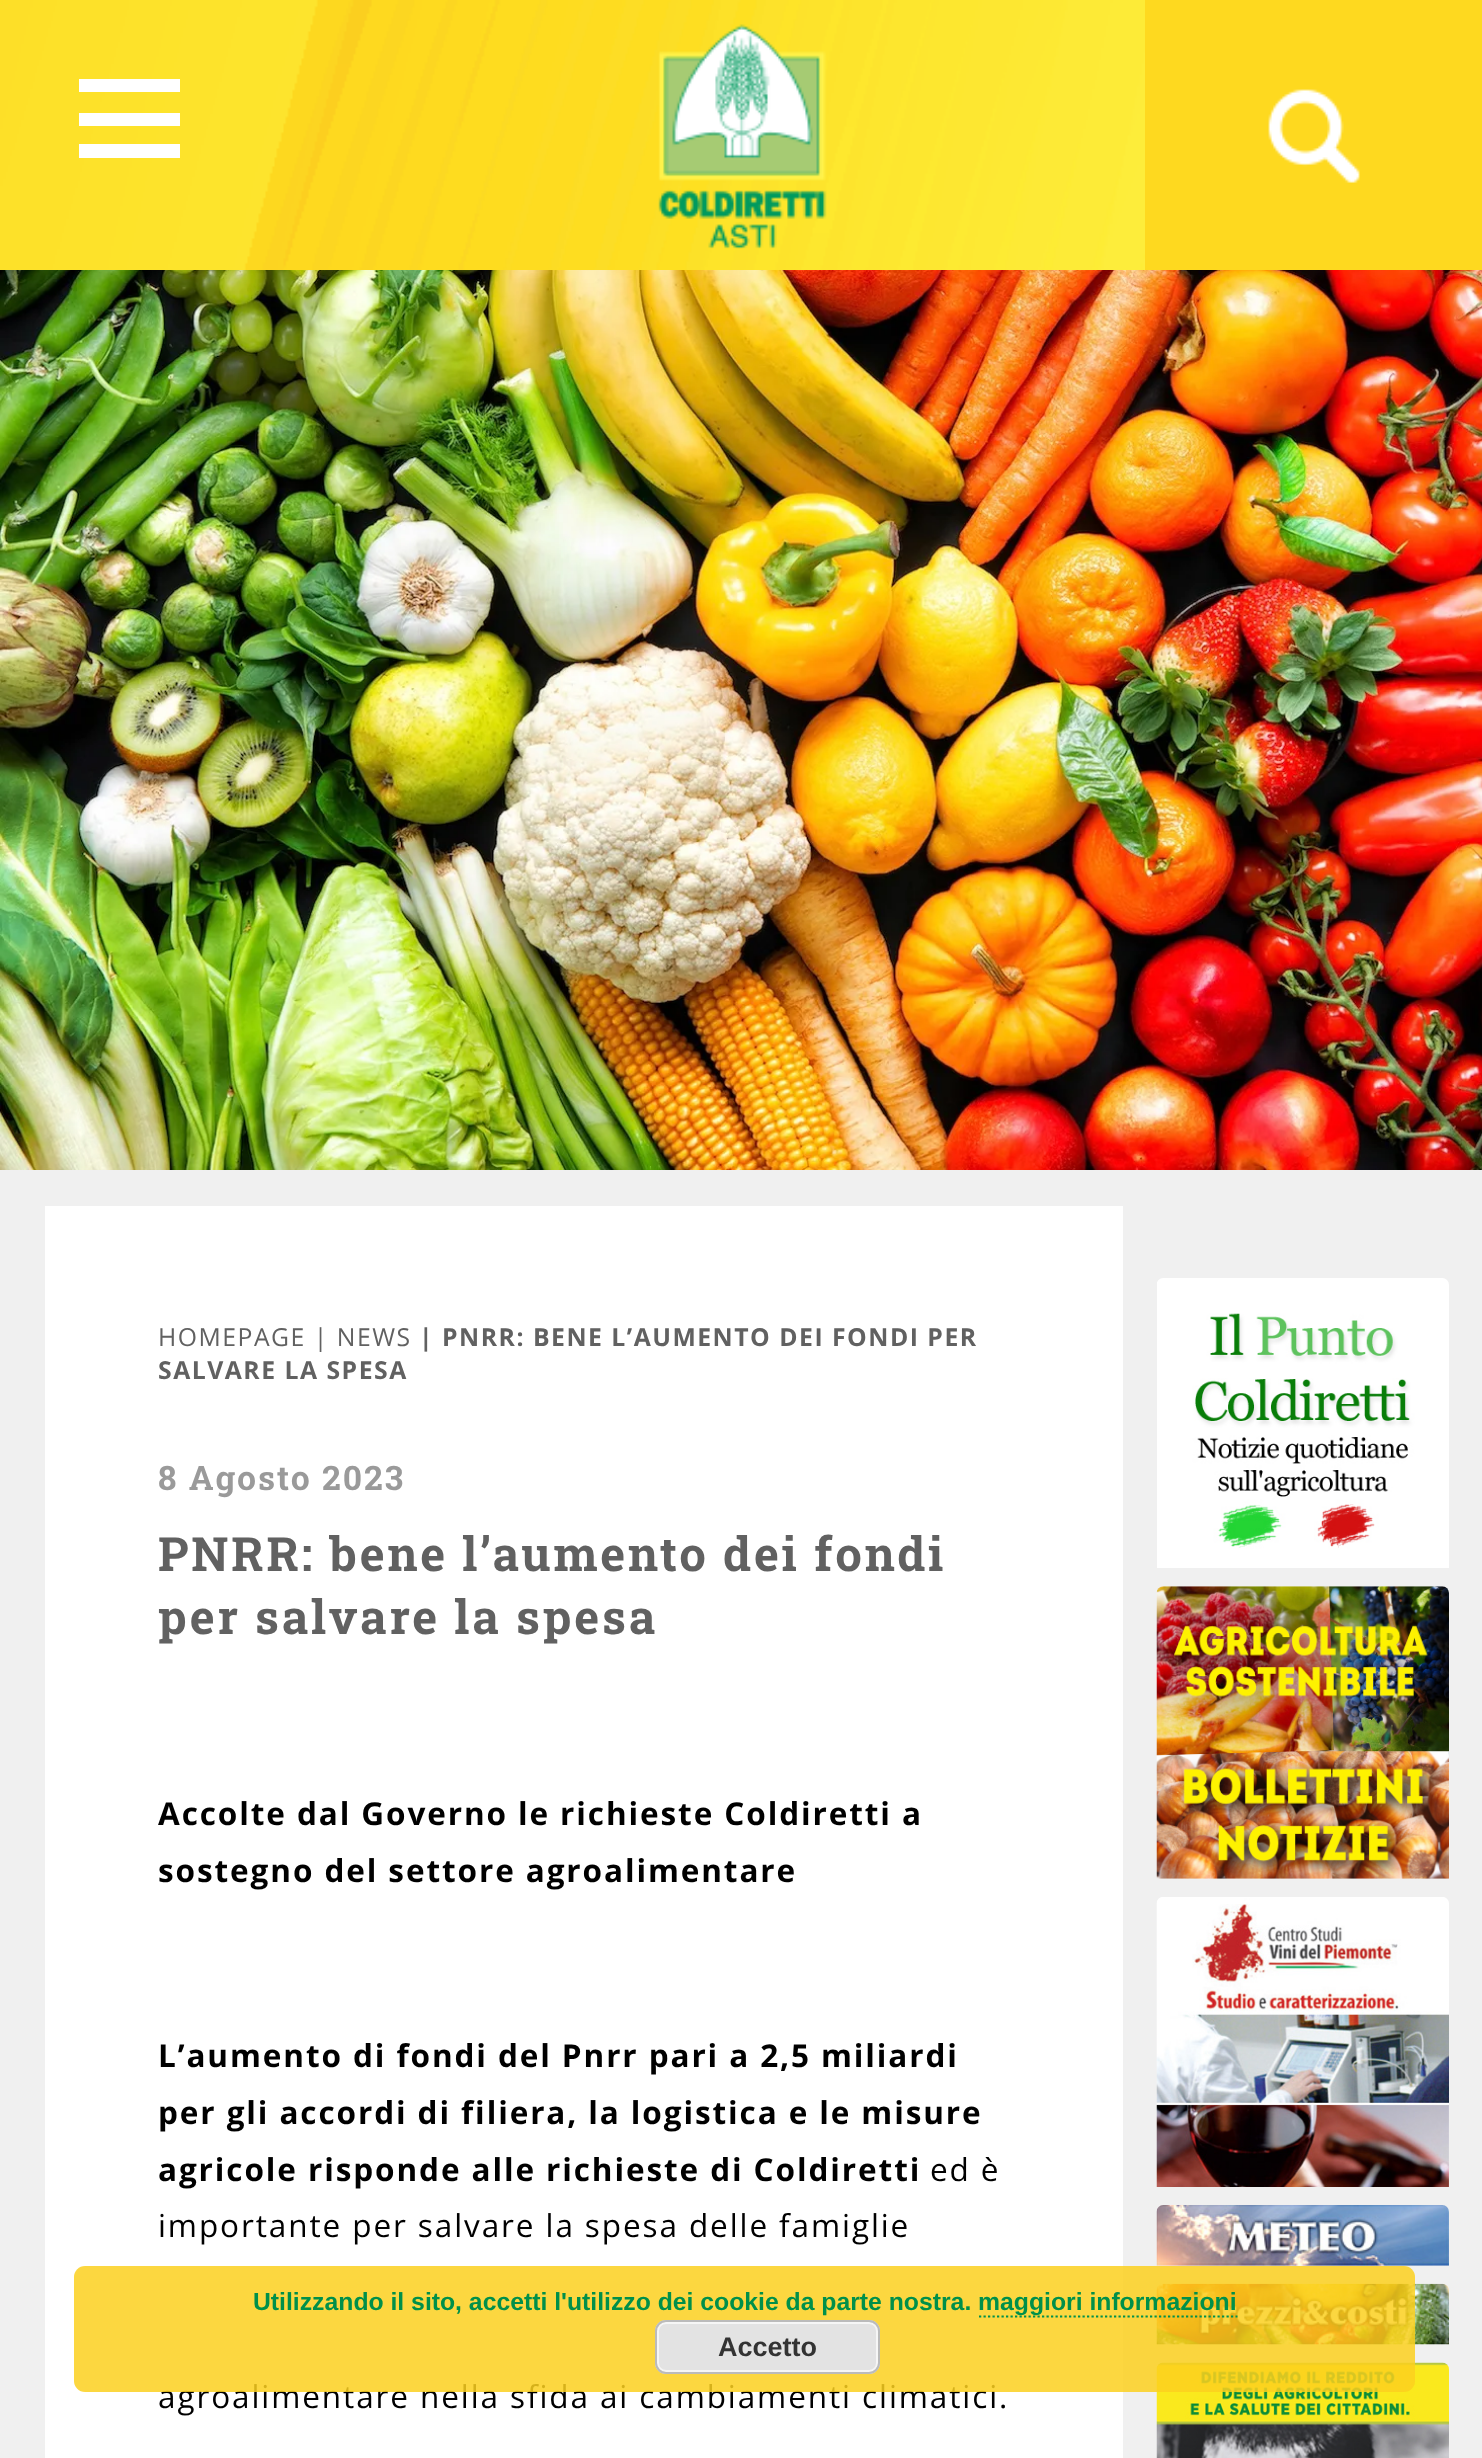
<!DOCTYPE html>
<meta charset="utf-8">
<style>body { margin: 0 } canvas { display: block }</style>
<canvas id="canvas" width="1482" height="2458"></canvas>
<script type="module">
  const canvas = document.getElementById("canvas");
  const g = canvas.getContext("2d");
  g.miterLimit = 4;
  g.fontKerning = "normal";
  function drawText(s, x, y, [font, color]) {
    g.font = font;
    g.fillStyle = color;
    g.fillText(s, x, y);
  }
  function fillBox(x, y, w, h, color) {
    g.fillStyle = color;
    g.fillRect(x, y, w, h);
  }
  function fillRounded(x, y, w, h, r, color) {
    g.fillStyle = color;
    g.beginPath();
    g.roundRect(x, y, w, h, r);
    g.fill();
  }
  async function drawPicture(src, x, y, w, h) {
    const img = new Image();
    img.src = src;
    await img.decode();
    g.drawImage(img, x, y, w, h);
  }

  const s1 = ["24.75px Open Sans", "#616161"];
  const s2 = ["bold 24.75px Open Sans", "#616161"];
  const s3 = ["bold 33.75px Roboto Slab", "#9A9A9A"];
  const s4 = ["bold 47.25px Roboto Slab", "#616161"];
  const s5 = ["bold 31.5px Open Sans", "#000000"];
  const s6 = ["31.5px Open Sans", "#000000"];
  const s7 = ["bold 24.75px Liberation Sans", "#00904A"];
  const s8 = ["bold 27px Liberation Sans", "#333333"];

  fillBox(0, 0, 1482, 2458, "#F0F0F0");
  await drawPicture("pic1.png", 0, 0, 1145, 270);
  fillBox(79, 79, 101, 13, "#FFFFFF");
  fillBox(79, 113, 101, 13, "#FFFFFF");
  fillBox(79, 144, 101, 14, "#FFFFFF");
  await drawPicture("pic2.png", 658, 24, 169, 225);
  fillBox(1145, 0, 337, 270, "#FED91F");
  await drawPicture("pic3.png", 1268, 89, 92, 94);
  await drawPicture("pic4.png", 0, 270, 1482, 900);
  fillBox(45, 1206, 1078, 1252, "#FFFFFF");
  g.letterSpacing = "1.5px";
  drawText("HOMEPAGE | NEWS", 158, 1346, s1);
  drawText("| PNRR: BENE L’AUMENTO DEI FONDI PER", 419, 1346, s2);
  drawText("SALVARE LA SPESA", 158, 1379, s2);
  g.letterSpacing = "2px";
  drawText("8 Agosto 2023", 158, 1490, s3);
  g.letterSpacing = "2.8px";
  drawText("PNRR: bene l’aumento dei fondi", 158, 1571, s4);
  drawText("per salvare la spesa", 158, 1634, s4);
  g.letterSpacing = "1.9px";
  drawText("Accolte dal Governo le richieste Coldiretti a", 158, 1825, s5);
  drawText("sostegno del settore agroalimentare", 158, 1882, s5);
  drawText("L’aumento di fondi del Pnrr pari a 2,5 miliardi", 158, 2067, s5);
  drawText("per gli accordi di filiera, la logistica e le misure", 158, 2124, s5);
  drawText("agricole risponde alle richieste di Coldiretti", 158, 2181, s5);
  drawText("ed è", 930, 2181, s6);
  drawText("importante per salvare la spesa delle famiglie", 158, 2237, s6);
  drawText("agroalimentare nella sfida ai cambiamenti climatici.", 158, 2408, s6);
  await drawPicture("pic5.png", 1157, 1278, 292, 290);
  await drawPicture("pic6.png", 1156, 1586, 293, 293);
  await drawPicture("pic7.png", 1156, 1897, 293, 290);
  await drawPicture("pic8.png", 1156, 2205, 293, 61);
  await drawPicture("pic9.png", 1156, 2283, 293, 62);
  await drawPicture("pic10.png", 1156, 2362, 293, 96);
  fillRounded(74, 2266, 1341, 126, 11, "rgba(251, 208, 31, 0.85)");
  g.letterSpacing = "0px";
  drawText("Utilizzando il sito, accetti l'utilizzo dei cookie da parte nostra.", 253, 2310, s7);
  g.beginPath();
  g.moveTo(979, 2316.5);
  g.lineTo(1237.5, 2316.5);
  g.strokeStyle = "#00904A";
  g.lineWidth = 2.2;
  g.setLineDash([2.25, 2.25]);
  g.stroke();
  drawText("maggiori informazioni", 978, 2310, s7);
  fillRounded(655, 2320, 225, 54, 11, "#E3E3E3");
  g.beginPath();
  g.roundRect(658, 2323, 219, 48, 8);
  g.strokeStyle = "#F6F6F6";
  g.lineWidth = 2;
  g.setLineDash([]);
  g.stroke();
  g.beginPath();
  g.roundRect(656, 2321, 223, 52, 10);
  g.strokeStyle = "#BBBBBB";
  g.stroke();
  drawText("Accetto", 718, 2356, s8);
</script>
